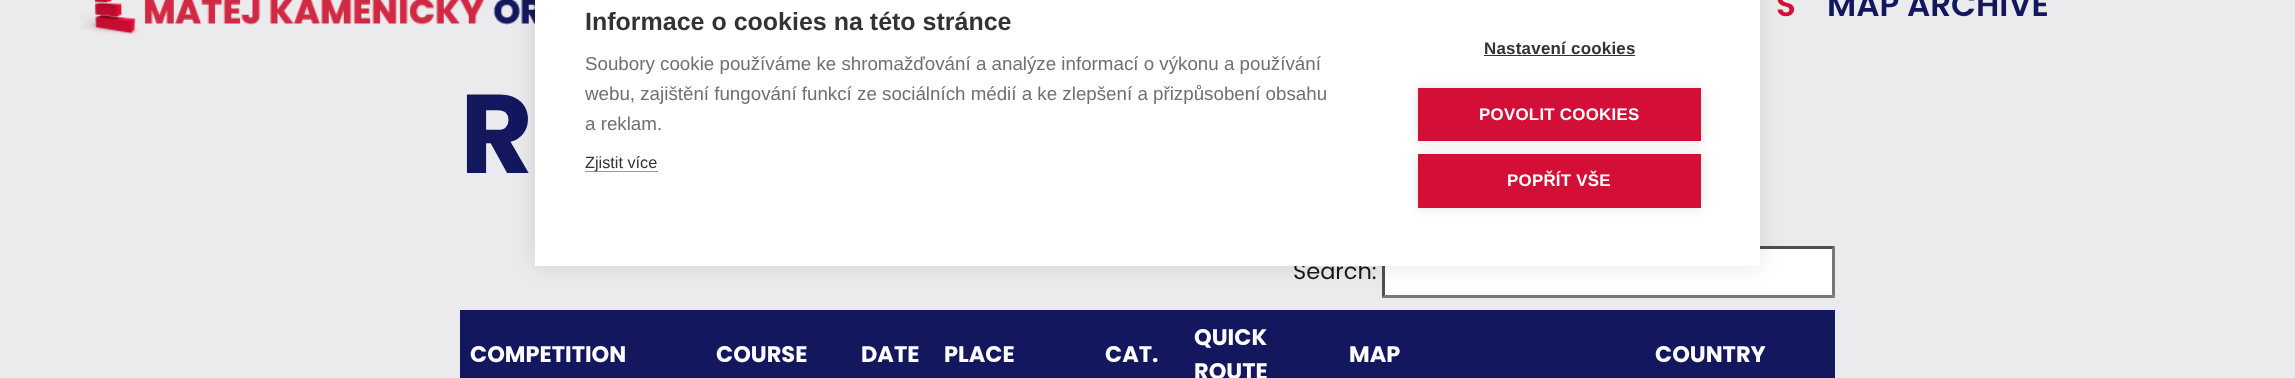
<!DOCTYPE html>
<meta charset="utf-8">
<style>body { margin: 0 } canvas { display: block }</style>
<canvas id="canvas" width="2295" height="378"></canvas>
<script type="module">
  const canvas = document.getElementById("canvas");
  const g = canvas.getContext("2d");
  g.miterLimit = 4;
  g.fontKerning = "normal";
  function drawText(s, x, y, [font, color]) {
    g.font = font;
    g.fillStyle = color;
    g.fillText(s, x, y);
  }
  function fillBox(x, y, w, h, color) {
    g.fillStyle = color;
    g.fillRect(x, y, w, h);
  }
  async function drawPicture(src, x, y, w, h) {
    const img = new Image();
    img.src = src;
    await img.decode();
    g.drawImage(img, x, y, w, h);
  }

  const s1 = ["600 32.5px Poppins", "#D40F37"];
  const s2 = ["600 32.5px Poppins", "#13175E"];
  const s3 = ["bold 112px Poppins", "#13175E"];
  const s4 = ["22.5px Poppins", "#181818"];
  const s5 = ["bold 22.5px Poppins", "#FFFFFF"];
  const s6 = ["bold 25px Liberation Sans", "#333333"];
  const s7 = ["18.75px Liberation Sans", "#707070"];
  const s8 = ["16.25px Liberation Sans", "#333333"];
  const s9 = ["bold 16.9px Liberation Sans", "#333333"];
  const s10 = ["bold 16.9px Liberation Sans", "#FFFFFF"];

  fillBox(0, 0, 2295, 378, "#EBEBED");
  await drawPicture("pic1.png", 80, 0, 455, 35);
  drawText("S", 1776, 16, s1);
  drawText("MAP ARCHIVE", 1827, 16, s2);
  g.letterSpacing = "-2px";
  drawText("R", 460, 173, s3);
  g.letterSpacing = "0px";
  drawText("Search:", 1293, 279, s4);
  fillBox(1383, 246, 452, 52, "#FFFFFF");
  g.fillStyle = "#4F4F4F";
  g.beginPath();
  g.moveTo(1382, 246);
  g.lineTo(1835, 246);
  g.lineTo(1832, 249);
  g.lineTo(1385, 249);
  g.closePath();
  g.fill();
  g.fillStyle = "#767676";
  g.beginPath();
  g.moveTo(1835, 246);
  g.lineTo(1835, 298);
  g.lineTo(1832, 295);
  g.lineTo(1832, 249);
  g.closePath();
  g.fill();
  g.beginPath();
  g.moveTo(1835, 298);
  g.lineTo(1382, 298);
  g.lineTo(1385, 295);
  g.lineTo(1832, 295);
  g.closePath();
  g.fill();
  g.fillStyle = "#4F4F4F";
  g.beginPath();
  g.moveTo(1382, 298);
  g.lineTo(1382, 246);
  g.lineTo(1385, 249);
  g.lineTo(1385, 295);
  g.closePath();
  g.fill();
  fillBox(460, 310, 1375, 68, "#13175E");
  drawText("COMPETITION", 470, 362, s5);
  drawText("COURSE", 716, 362, s5);
  drawText("DATE", 861, 362, s5);
  drawText("PLACE", 944, 362, s5);
  drawText("CAT.", 1105, 362, s5);
  drawText("QUICK", 1194, 345, s5);
  drawText("ROUTE", 1194, 379, s5);
  drawText("MAP", 1349, 362, s5);
  drawText("COUNTRY", 1655, 362, s5);
  g.fillStyle = "rgba(0, 0, 0, 0.1)";
  g.filter = "blur(12.5px)";
  g.beginPath();
  g.rect(535, -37, 1225, 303);
  g.fill();
  g.filter = "none";
  fillBox(535, 0, 1225, 266, "#FFFFFF");
  drawText("Informace o cookies na této stránce", 585, 30, s6);
  drawText("Soubory cookie používáme ke shromažďování a analýze informací o výkonu a používání", 585, 70, s7);
  drawText("webu, zajištění fungování funkcí ze sociálních médií a ke zlepšení a přizpůsobení obsahu", 585, 100, s7);
  drawText("a reklam.", 585, 130, s7);
  fillBox(585, 171, 73, 1, "#999999");
  drawText("Zjistit více", 585, 168, s8);
  g.letterSpacing = "0.25px";
  drawText("Nastavení cookies", 1484, 54, s9);
  fillBox(1484, 55, 151, 1, "#333333");
  g.fillStyle = "rgba(0, 0, 0, 0.12)";
  g.filter = "blur(6px)";
  g.beginPath();
  g.rect(1418, 88, 283, 53);
  g.fill();
  g.filter = "none";
  fillBox(1418, 88, 283, 53, "#D40F37");
  drawText("POVOLIT COOKIES", 1479, 120, s10);
  g.fillStyle = "rgba(0, 0, 0, 0.12)";
  g.filter = "blur(6px)";
  g.beginPath();
  g.rect(1418, 154, 283, 54);
  g.fill();
  g.filter = "none";
  fillBox(1418, 154, 283, 54, "#D40F37");
  drawText("POPŘÍT VŠE", 1507, 186, s10);
</script>
